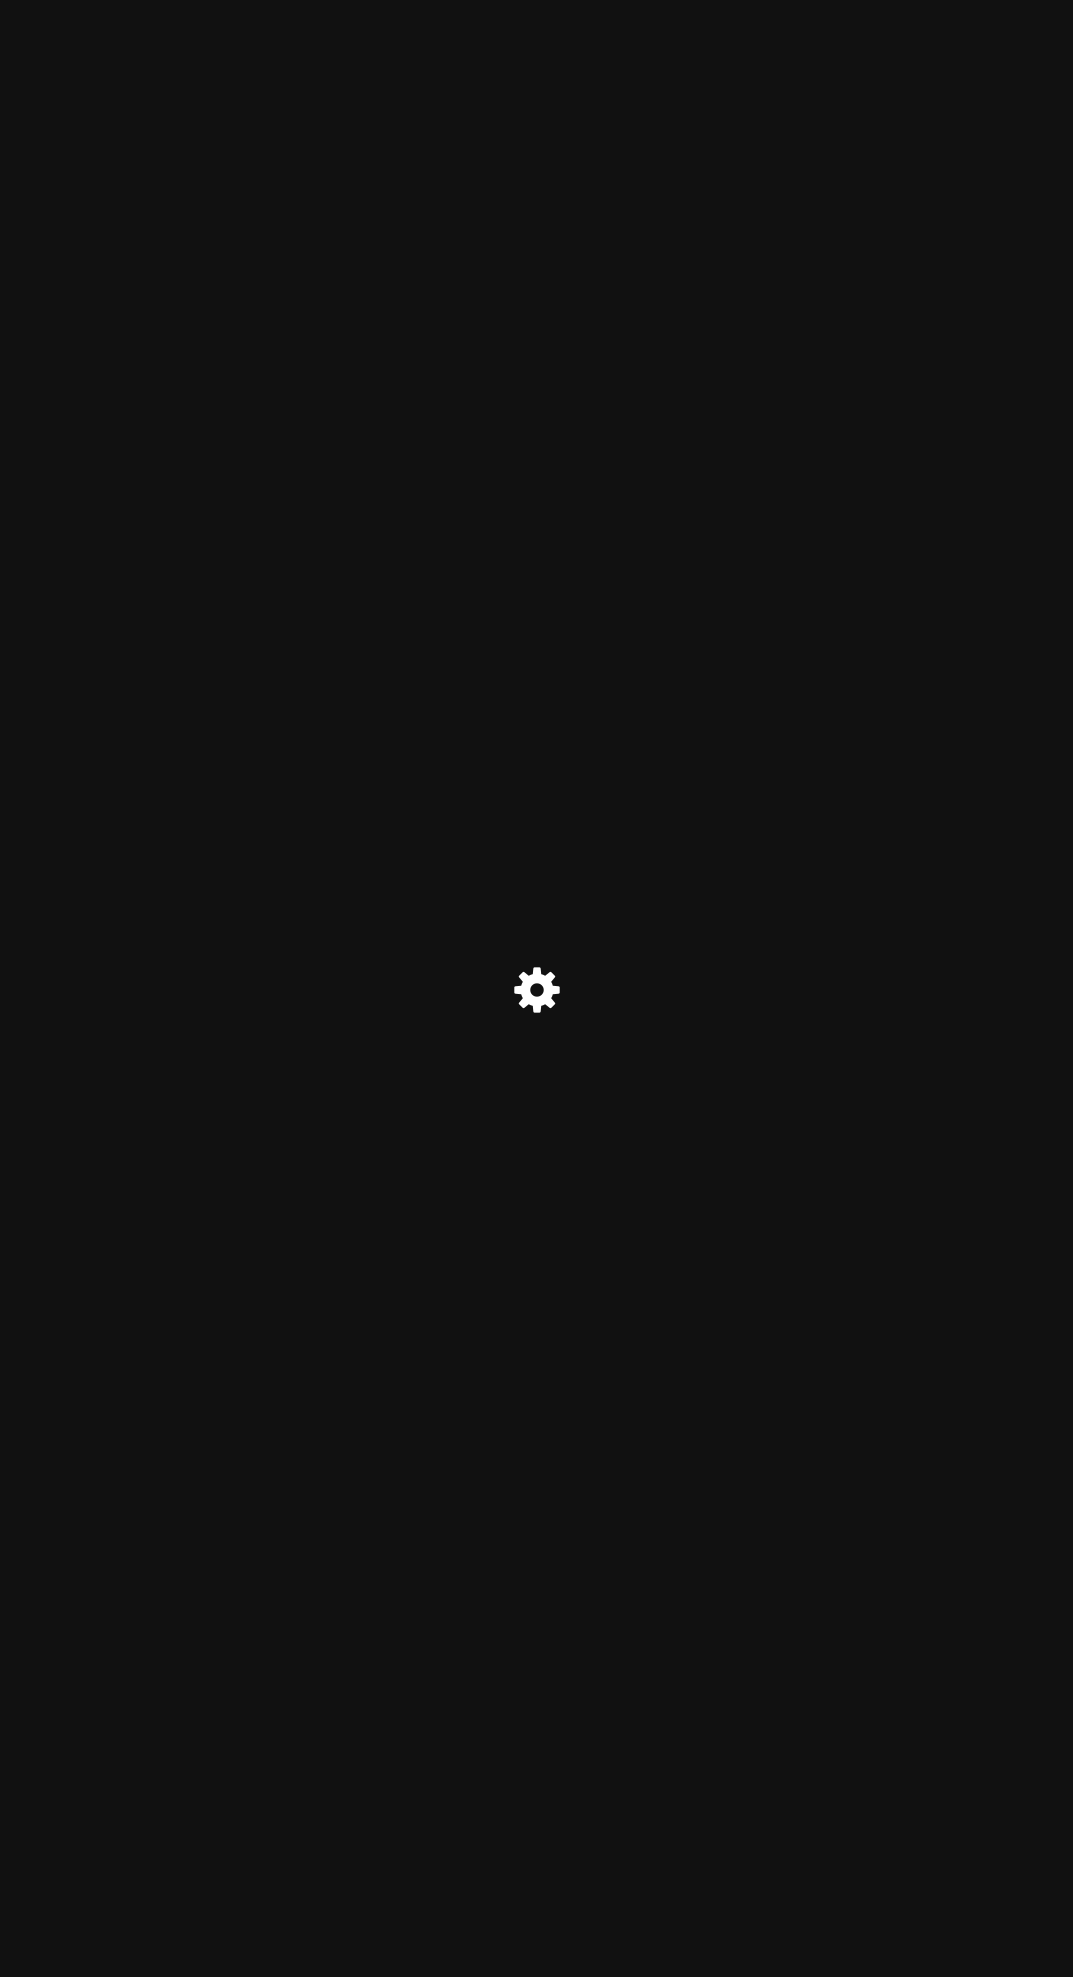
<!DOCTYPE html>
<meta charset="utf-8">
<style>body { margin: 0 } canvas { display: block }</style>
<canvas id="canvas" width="1073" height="1977"></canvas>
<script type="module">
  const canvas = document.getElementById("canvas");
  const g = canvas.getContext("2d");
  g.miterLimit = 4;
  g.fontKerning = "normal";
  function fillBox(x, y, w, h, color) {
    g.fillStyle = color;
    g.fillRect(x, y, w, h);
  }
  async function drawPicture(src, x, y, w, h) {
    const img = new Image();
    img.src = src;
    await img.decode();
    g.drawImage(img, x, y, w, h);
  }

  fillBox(0, 0, 1073, 1977, "#111111");
  await drawPicture("pic1.png", 514, 967, 46, 46);
</script>
